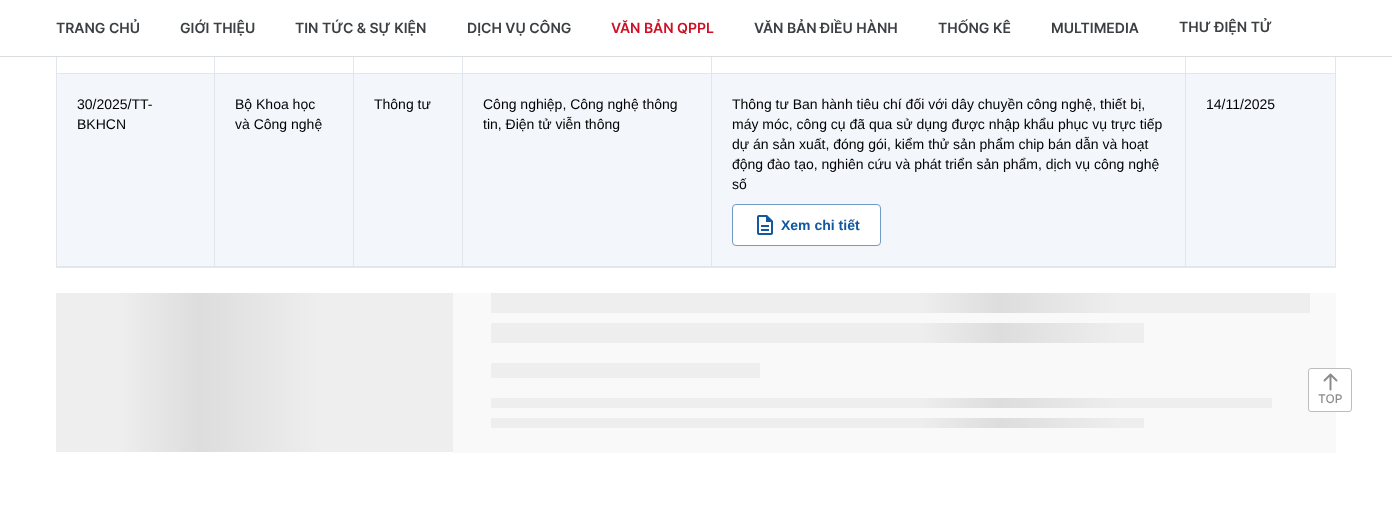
<!DOCTYPE html>
<meta charset="utf-8">
<style>body { margin: 0 } canvas { display: block }</style>
<canvas id="canvas" width="1392" height="512"></canvas>
<script type="module">
  const canvas = document.getElementById("canvas");
  const g = canvas.getContext("2d");
  g.miterLimit = 4;
  g.fontKerning = "normal";
  function drawText(s, x, y, [font, color]) {
    g.font = font;
    g.fillStyle = color;
    g.fillText(s, x, y);
  }
  function fillBox(x, y, w, h, color) {
    g.fillStyle = color;
    g.fillRect(x, y, w, h);
  }
  async function drawPicture(src, x, y, w, h) {
    const img = new Image();
    img.src = src;
    await img.decode();
    g.drawImage(img, x, y, w, h);
  }
  let gradient;

  const s1 = ["600 14px Inter", "#3D4043"];
  const s2 = ["600 14px Inter", "#CE1126"];
  const s3 = ["14px Liberation Sans", "#000000"];
  const s4 = ["bold 14px Liberation Sans", "#1259A0"];
  const s5 = ["500 12px Inter", "#8B8B8B"];

  fillBox(0, 0, 1392, 512, "#FFFFFF");
  g.strokeStyle = "#E2E7ED";
  g.strokeRect(56.5, -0.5, 1279, 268);
  fillBox(56, 0, 1280, 56, "#FFFFFF");
  fillBox(0, 56, 1392, 1, "#DADCE0");
  drawText("TRANG CHỦ", 56, 33, s1);
  drawText("GIỚI THIỆU", 180, 33, s1);
  drawText("TIN TỨC & SỰ KIỆN", 295, 33, s1);
  drawText("DỊCH VỤ CÔNG", 467, 33, s1);
  drawText("VĂN BẢN QPPL", 611, 33, s2);
  drawText("VĂN BẢN ĐIỀU HÀNH", 754, 33, s1);
  drawText("THỐNG KÊ", 938, 33, s1);
  drawText("MULTIMEDIA", 1051, 33, s1);
  drawText("THƯ ĐIỆN TỬ", 1179, 32, s1);
  fillBox(57, 73, 1278, 1, "#E2E7ED");
  fillBox(214, 57, 1, 16, "#E2E7ED");
  fillBox(353, 57, 1, 16, "#E2E7ED");
  fillBox(462, 57, 1, 16, "#E2E7ED");
  fillBox(711, 57, 1, 16, "#E2E7ED");
  fillBox(1185, 57, 1, 16, "#E2E7ED");
  fillBox(57, 74, 1278, 192, "#F3F6FB");
  fillBox(57, 266, 1278, 1, "#E2E7ED");
  fillBox(214, 74, 1, 192, "#E2E7ED");
  drawText("30/2025/TT-", 77, 109, s3);
  drawText("BKHCN", 77, 129, s3);
  fillBox(353, 74, 1, 192, "#E2E7ED");
  drawText("Bộ Khoa học", 235, 109, s3);
  drawText("và Công nghệ", 235, 129, s3);
  fillBox(462, 74, 1, 192, "#E2E7ED");
  drawText("Thông tư", 374, 109, s3);
  fillBox(711, 74, 1, 192, "#E2E7ED");
  drawText("Công nghiệp, Công nghệ thông", 483, 109, s3);
  drawText("tin, Điện tử viễn thông", 483, 129, s3);
  fillBox(1185, 74, 1, 192, "#E2E7ED");
  drawText("Thông tư Ban hành tiêu chí đối với dây chuyền công nghệ, thiết bị,", 732, 109, s3);
  drawText("máy móc, công cụ đã qua sử dụng được nhập khẩu phục vụ trực tiếp", 732, 129, s3);
  drawText("dự án sản xuất, đóng gói, kiểm thử sản phẩm chip bán dẫn và hoạt", 732, 149, s3);
  drawText("động đào tạo, nghiên cứu và phát triển sản phẩm, dịch vụ công nghệ", 732, 169, s3);
  drawText("số", 732, 189, s3);
  g.fillStyle = "#FFFFFF";
  g.beginPath();
  g.roundRect(732.5, 204.5, 148, 41, 3.5);
  g.fill();
  g.strokeStyle = "#719BC6";
  g.stroke();
  await drawPicture("pic1.png", 757, 215, 16, 20);
  drawText("Xem chi tiết", 781, 230, s4);
  drawText("14/11/2025", 1206, 109, s3);
  gradient = g.createLinearGradient(56, 393, 856, 393);
  gradient.addColorStop(0.08, "#EEEEEE");
  gradient.addColorStop(0.18, "#DDDDDD");
  gradient.addColorStop(0.33, "#EEEEEE");
  g.fillStyle = gradient;
  g.fillRect(56, 293, 800, 159);
  gradient = g.createLinearGradient(856, 393, 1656, 393);
  gradient.addColorStop(0.08, "#EEEEEE");
  gradient.addColorStop(0.18, "#DDDDDD");
  gradient.addColorStop(0.33, "#EEEEEE");
  g.fillStyle = gradient;
  g.fillRect(856, 293, 454, 135);
  fillBox(453, 293, 38, 20, "#F9F9F9");
  fillBox(1310, 293, 26, 20, "#F9F9F9");
  fillBox(453, 313, 883, 10, "#F9F9F9");
  fillBox(453, 323, 38, 20, "#F9F9F9");
  fillBox(1144, 323, 192, 20, "#F9F9F9");
  fillBox(453, 343, 883, 20, "#F9F9F9");
  fillBox(453, 363, 38, 15, "#F9F9F9");
  fillBox(760, 363, 576, 15, "#F9F9F9");
  fillBox(453, 378, 855, 20, "#F9F9F9");
  fillBox(453, 398, 38, 10, "#F9F9F9");
  fillBox(1272, 398, 36, 10, "#F9F9F9");
  fillBox(453, 408, 883, 10, "#F9F9F9");
  fillBox(453, 418, 38, 10, "#F9F9F9");
  fillBox(1144, 418, 192, 10, "#F9F9F9");
  fillBox(453, 428, 883, 25, "#F9F9F9");
  g.fillStyle = "#FFFFFF";
  g.beginPath();
  g.roundRect(1308.5, 368.5, 43, 43, 2.5);
  g.fill();
  g.strokeStyle = "#BDBDBD";
  g.stroke();
  await drawPicture("pic2.png", 1323, 373, 15, 18);
  drawText("TOP", 1318, 403, s5);
</script>
